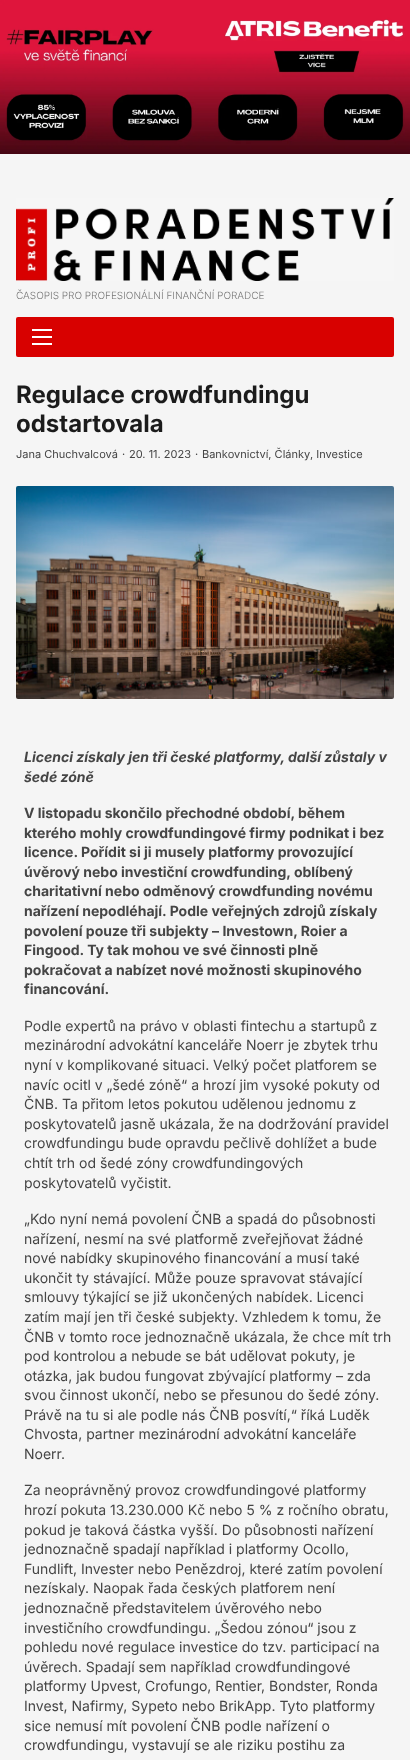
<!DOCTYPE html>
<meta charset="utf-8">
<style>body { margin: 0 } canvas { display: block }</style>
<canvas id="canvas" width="410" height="1760"></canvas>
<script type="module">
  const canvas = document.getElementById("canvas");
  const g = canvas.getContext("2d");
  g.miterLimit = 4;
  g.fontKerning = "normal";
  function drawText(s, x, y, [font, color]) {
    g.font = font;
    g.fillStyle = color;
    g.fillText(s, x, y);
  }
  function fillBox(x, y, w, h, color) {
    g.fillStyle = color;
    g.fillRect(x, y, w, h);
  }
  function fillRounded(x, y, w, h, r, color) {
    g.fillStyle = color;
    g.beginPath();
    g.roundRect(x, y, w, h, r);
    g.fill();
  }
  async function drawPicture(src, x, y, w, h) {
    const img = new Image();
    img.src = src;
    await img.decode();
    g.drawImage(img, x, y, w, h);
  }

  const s1 = ["300 10px Inter", "#777777"];
  const s2 = ["bold 24px Inter", "#1B1B1B"];
  const s3 = ["11px Inter", "#454545"];
  const s4 = ["italic bold 14px Inter", "#454545"];
  const s5 = ["bold 14px Inter", "#454545"];
  const s6 = ["14px Inter", "#454545"];

  fillBox(0, 0, 410, 1760, "#F5F5F5");
  await drawPicture("pic1.png", 0, 0, 410, 154);
  await drawPicture("pic2.png", 16, 198, 378, 83);
  drawText("ČASOPIS PRO PROFESIONÁLNÍ FINANČNÍ PORADCE", 16, 299, s1);
  fillRounded(16, 317, 378, 40, 2, "#D80100");
  fillBox(32, 329, 20, 2, "#FFFFFF");
  fillBox(32, 336, 20, 2, "#FFFFFF");
  fillBox(32, 343, 20, 2, "#FFFFFF");
  drawText("Regulace crowdfundingu", 16, 403, s2);
  drawText("odstartovala", 16, 432, s2);
  drawText("Jana Chuchvalcová", 16, 458, s3);
  drawText("·", 122, 458, s3);
  drawText("20. 11. 2023", 129, 458, s3);
  drawText("·", 195, 458, s3);
  drawText("Bankovnictví, Články", 202, 458, s3);
  drawText(", Investice", 310, 458, s3);
  await drawPicture("pic3.png", 16, 486, 378, 213);
  drawText("Licenci získaly jen tři české platformy, další zůstaly v", 24, 762, s4);
  drawText("šedé zóně", 24, 782, s4);
  drawText("V listopadu skončilo přechodné období, během", 24, 818, s5);
  drawText("kterého mohly crowdfundingové firmy podnikat i bez", 24, 838, s5);
  drawText("licence. Pořídit si ji musely platformy provozující", 24, 857, s5);
  drawText("úvěrový nebo investiční crowdfunding, oblíbený", 24, 877, s5);
  drawText("charitativní nebo odměnový crowdfunding novému", 24, 896, s5);
  drawText("nařízení nepodléhají. Podle veřejných zdrojů získaly", 24, 916, s5);
  drawText("povolení pouze tři subjekty – Investown, Roier a", 24, 936, s5);
  drawText("Fingood. Ty tak mohou ve své činnosti plně", 24, 955, s5);
  drawText("pokračovat a nabízet nové možnosti skupinového", 24, 975, s5);
  drawText("financování.", 24, 994, s5);
  drawText("Podle expertů na právo v oblasti fintechu a startupů z", 24, 1031, s6);
  drawText("mezinárodní advokátní kanceláře Noerr je zbytek trhu", 24, 1050, s6);
  drawText("nyní v komplikované situaci. Velký počet platforem se", 24, 1070, s6);
  drawText("navíc ocitl v „šedé zóně“ a hrozí jim vysoké pokuty od", 24, 1090, s6);
  drawText("ČNB. Ta přitom letos pokutou udělenou jednomu z", 24, 1109, s6);
  drawText("poskytovatelů jasně ukázala, že na dodržování pravidel", 24, 1129, s6);
  drawText("crowdfundingu bude opravdu pečlivě dohlížet a bude", 24, 1148, s6);
  drawText("chtít trh od šedé zóny crowdfundingových", 24, 1168, s6);
  drawText("poskytovatelů vyčistit.", 24, 1188, s6);
  drawText("„Kdo nyní nemá povolení ČNB a spadá do působnosti", 24, 1224, s6);
  drawText("nařízení, nesmí na své platformě zveřejňovat žádné", 24, 1244, s6);
  drawText("nové nabídky skupinového financování a musí také", 24, 1263, s6);
  drawText("ukončit ty stávající. Může pouze spravovat stávající", 24, 1283, s6);
  drawText("smlouvy týkající se již ukončených nabídek. Licenci", 24, 1302, s6);
  drawText("zatím mají jen tři české subjekty. Vzhledem k tomu, že", 24, 1322, s6);
  drawText("ČNB v tomto roce jednoznačně ukázala, že chce mít trh", 24, 1342, s6);
  drawText("pod kontrolou a nebude se bát udělovat pokuty, je", 24, 1361, s6);
  drawText("otázka, jak budou fungovat zbývající platformy – zda", 24, 1381, s6);
  drawText("svou činnost ukončí, nebo se přesunou do šedé zóny.", 24, 1400, s6);
  drawText("Právě na tu si ale podle nás ČNB posvítí,“ říká Luděk", 24, 1420, s6);
  drawText("Chvosta, partner mezinárodní advokátní kanceláře", 24, 1439, s6);
  drawText("Noerr.", 24, 1459, s6);
  drawText("Za neoprávněný provoz crowdfundingové platformy", 24, 1495, s6);
  drawText("hrozí pokuta 13.230.000 Kč nebo 5 % z ročního obratu,", 24, 1515, s6);
  drawText("pokud je taková částka vyšší. Do působnosti nařízení", 24, 1535, s6);
  drawText("jednoznačně spadají například i platformy Ocollo,", 24, 1554, s6);
  drawText("Fundlift, Invester nebo Penězdroj, které zatím povolení", 24, 1574, s6);
  drawText("nezískaly. Naopak řada českých platforem není", 24, 1593, s6);
  drawText("jednoznačně představitelem úvěrového nebo", 24, 1613, s6);
  drawText("investičního crowdfundingu. „Šedou zónou“ jsou z", 24, 1633, s6);
  drawText("pohledu nové regulace investice do tzv. participací na", 24, 1652, s6);
  drawText("úvěrech. Spadají sem například crowdfundingové", 24, 1672, s6);
  drawText("platformy Upvest, Crofungo, Rentier, Bondster, Ronda", 24, 1691, s6);
  drawText("Invest, Nafirmy, Sypeto nebo BrikApp. Tyto platformy", 24, 1711, s6);
  drawText("sice nemusí mít povolení ČNB podle nařízení o", 24, 1731, s6);
  drawText("crowdfundingu, vystavují se ale riziku postihu za", 24, 1750, s6);
</script>
